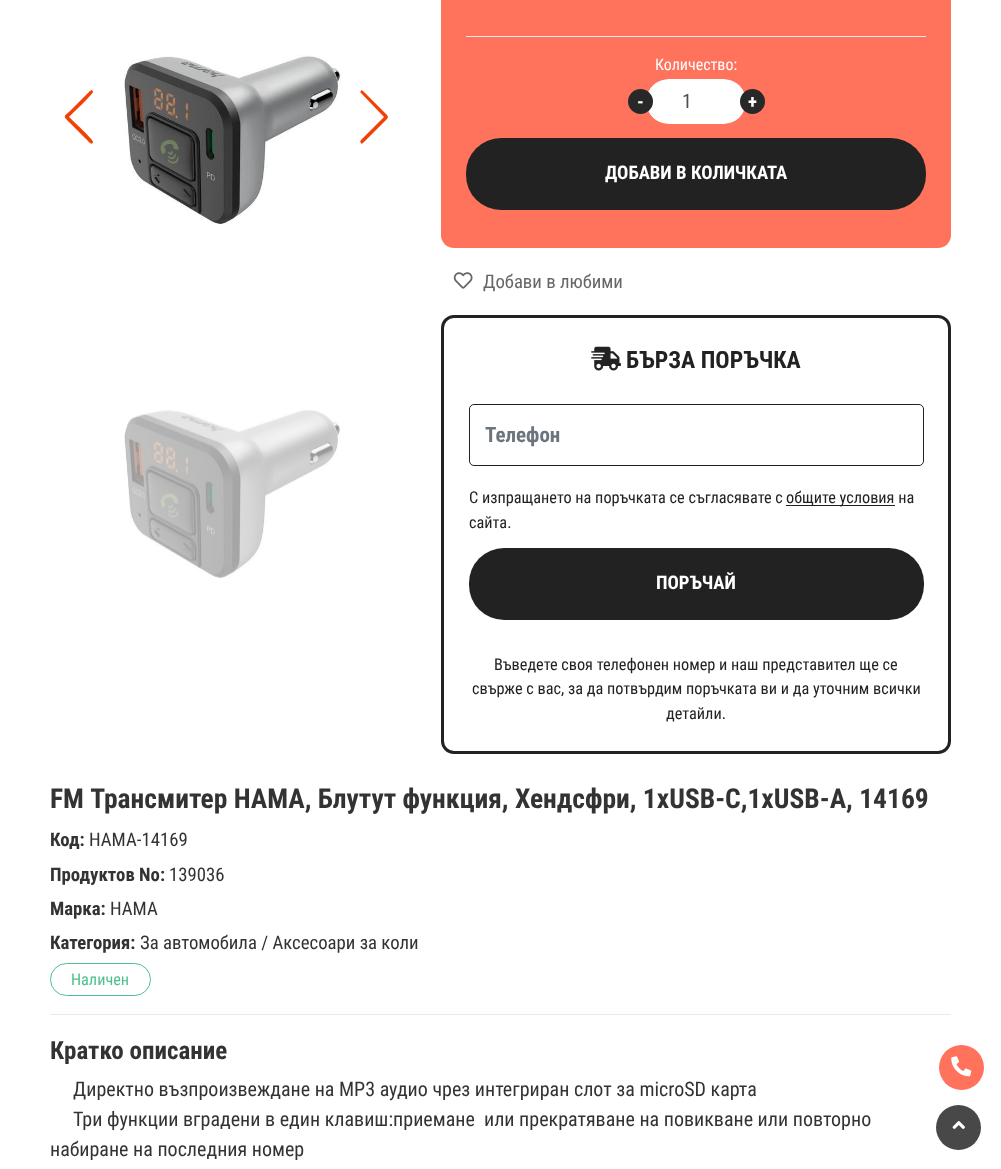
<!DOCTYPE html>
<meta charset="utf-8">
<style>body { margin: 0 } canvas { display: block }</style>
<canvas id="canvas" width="1001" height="1169"></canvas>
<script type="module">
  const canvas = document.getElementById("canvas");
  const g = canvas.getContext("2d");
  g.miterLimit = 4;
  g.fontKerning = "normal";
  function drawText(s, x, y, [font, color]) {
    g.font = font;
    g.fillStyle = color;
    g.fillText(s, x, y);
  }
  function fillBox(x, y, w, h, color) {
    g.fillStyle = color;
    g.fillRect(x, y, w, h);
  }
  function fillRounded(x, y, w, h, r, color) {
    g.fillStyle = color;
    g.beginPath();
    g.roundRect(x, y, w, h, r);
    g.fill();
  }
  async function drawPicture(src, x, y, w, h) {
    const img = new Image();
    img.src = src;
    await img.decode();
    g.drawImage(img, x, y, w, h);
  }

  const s1 = ["16px Roboto Condensed", "#FFFFFF"];
  const s2 = ["bold 18.75px Roboto Condensed", "#FFFFFF"];
  const s3 = ["20px Roboto Condensed", "#495057"];
  const s4 = ["18.75px Roboto Condensed", "#666666"];
  const s5 = ["bold 23.75px Roboto Condensed", "#222222"];
  const s6 = ["bold 21px Roboto Condensed", "#6C757D"];
  const s7 = ["16.25px Roboto Condensed", "#222222"];
  const s8 = ["bold 27.5px Roboto Condensed", "#333333"];
  const s9 = ["bold 18.75px Roboto Condensed", "#333333"];
  const s10 = ["18.75px Roboto Condensed", "#333333"];
  const s11 = ["16.25px Roboto Condensed", "#4FC08D"];
  const s12 = ["bold 25px Roboto Condensed", "#333333"];
  const s13 = ["20px Roboto Condensed", "#333333"];

  fillBox(0, 0, 1001, 1169, "#FFFFFF");
  g.fillStyle = "#F14105";
  g.beginPath();
  g.moveTo(90, 91);
  g.bezierCurveTo(91, 90, 93, 90, 93, 92);
  g.bezierCurveTo(93, 94, 72, 114, 69, 117);
  g.bezierCurveTo(72, 120, 94, 140, 93, 142);
  g.bezierCurveTo(92, 146, 89, 142, 86, 139);
  g.lineTo(70, 123);
  g.bezierCurveTo(63, 116, 63, 117, 70, 111);
  g.closePath();
  g.fill();
  await drawPicture("pic1.png", 124, 55, 218, 169);
  g.beginPath();
  g.moveTo(361, 143);
  g.bezierCurveTo(360, 142, 360, 141, 361, 140);
  g.lineTo(384, 117);
  g.lineTo(361, 93);
  g.bezierCurveTo(360, 92, 360, 92, 361, 91);
  g.bezierCurveTo(361, 90, 362, 90, 363, 91);
  g.lineTo(387, 115);
  g.lineTo(388, 117);
  g.lineTo(387, 119);
  g.lineTo(363, 143);
  g.bezierCurveTo(362, 144, 361, 144, 361, 143);
  g.closePath();
  g.fill();
  await drawPicture("pic2.png", 124, 409, 216, 169);
  fillRounded(441, -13, 510, 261, 13, "#FF735C");
  fillBox(466, 36, 460, 1, "#EAE8E8");
  drawText("Количество:", 655, 70, s1);
  fillRounded(646, 79, 100, 45, 22.5, "#FFFFFF");
  g.beginPath();
  g.roundRect(645.5, 78.5, 102, 46, 23);
  g.strokeStyle = "#FF735C";
  g.stroke();
  g.fillStyle = "#282828";
  g.beginPath();
  g.arc(640.5, 101.5, 12.5, 0, Math.PI * 2);
  g.fill();
  drawText("-", 637, 108, s2);
  drawText("1", 682, 108, s3);
  g.fillStyle = "#282828";
  g.beginPath();
  g.arc(752.5, 101.5, 12.5, 0, Math.PI * 2);
  g.fill();
  drawText("+", 748, 108, s2);
  fillRounded(466, 138, 460, 72, 35, "#222222");
  drawText("ДОБАВИ В КОЛИЧКАТА", 605, 179, s2);
  await drawPicture("pic3.png", 453, 272, 20, 17);
  drawText("Добави в любими", 483, 288, s4);
  g.beginPath();
  g.roundRect(442.5, 316.5, 507, 436, 11.5);
  g.strokeStyle = "#222222";
  g.lineWidth = 3;
  g.stroke();
  await drawPicture("pic4.png", 591, 346, 30, 25);
  drawText("БЪРЗА ПОРЪЧКА", 626, 368, s5);
  g.beginPath();
  g.roundRect(469.5, 404.5, 454, 61, 4.5);
  g.lineWidth = 1;
  g.stroke();
  drawText("Телефон", 485, 442, s6);
  drawText("С изпращането на поръчката се съгласявате с", 469, 503, s7);
  fillBox(786, 505, 109, 1, "#222222");
  drawText("общите условия на", 786, 503, s7);
  drawText("сайта.", 469, 528, s7);
  fillRounded(469, 548, 455, 72, 35, "#222222");
  drawText("ПОРЪЧАЙ", 656, 589, s2);
  drawText("Въведете своя телефонен номер и наш представител ще се", 494, 670, s7);
  drawText("свърже с вас, за да потвърдим поръчката ви и да уточним всички", 472, 694, s7);
  drawText("детайли.", 666, 719, s7);
  drawText("FM Трансмитер HAMA, Блутут функция, Хендсфри, 1xUSB-C,1xUSB-A, 14169", 50, 808, s8);
  drawText("Код:", 50, 846, s9);
  drawText("HAMA-14169", 89, 846, s10);
  drawText("Продуктов No:", 50, 881, s9);
  drawText("139036", 169, 881, s10);
  drawText("Марка:", 50, 915, s9);
  drawText("HAMA", 110, 915, s10);
  drawText("Категория:", 50, 949, s9);
  drawText("За автомобила / Аксесоари за коли", 140, 949, s10);
  g.beginPath();
  g.roundRect(50.5, 963.5, 100, 32, 16);
  g.strokeStyle = "#4FC08D";
  g.stroke();
  drawText("Наличен", 71, 985, s11);
  fillBox(50, 1014, 901, 1, "#EAE8E8");
  drawText("Кратко описание", 50, 1059, s12);
  drawText("Директно възпроизвеждане на MP3 аудио чрез интегриран слот за microSD карта", 73, 1096, s13);
  drawText("Три функции вградени в един клавиш:приемане  или прекратяване на повикване или повторно", 73, 1126, s13);
  drawText("набиране на последния номер", 50, 1156, s13);
  g.fillStyle = "#FF735C";
  g.beginPath();
  g.arc(961.5, 1067.5, 22.5, 0, Math.PI * 2);
  g.fill();
  await drawPicture("pic5.png", 951, 1056, 21, 21);
  g.fillStyle = "#484848";
  g.beginPath();
  g.arc(958.5, 1127.5, 22.5, 0, Math.PI * 2);
  g.fill();
  await drawPicture("pic6.png", 952, 1121, 13, 8);
</script>
